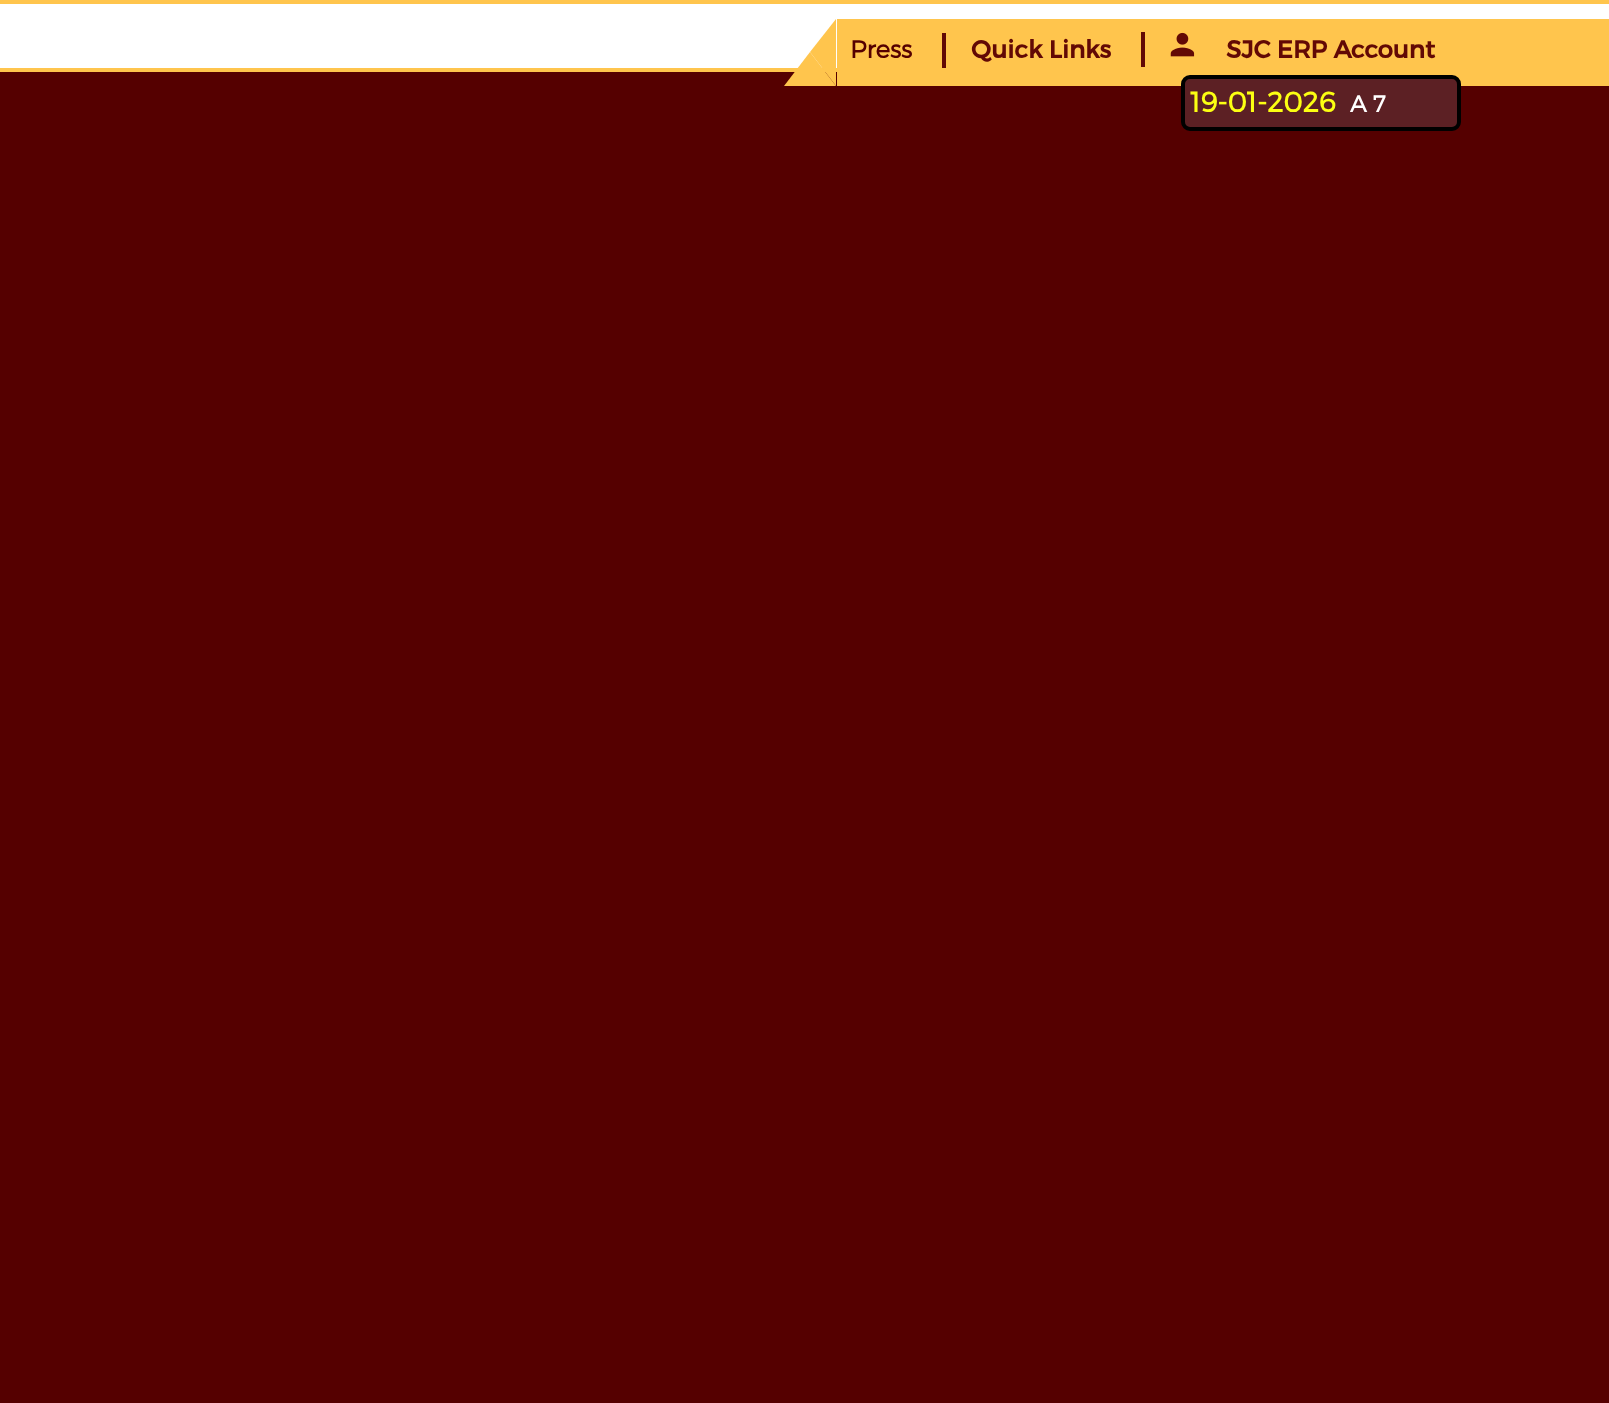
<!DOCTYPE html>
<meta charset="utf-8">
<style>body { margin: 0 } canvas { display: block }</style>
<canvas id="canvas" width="1609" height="1403"></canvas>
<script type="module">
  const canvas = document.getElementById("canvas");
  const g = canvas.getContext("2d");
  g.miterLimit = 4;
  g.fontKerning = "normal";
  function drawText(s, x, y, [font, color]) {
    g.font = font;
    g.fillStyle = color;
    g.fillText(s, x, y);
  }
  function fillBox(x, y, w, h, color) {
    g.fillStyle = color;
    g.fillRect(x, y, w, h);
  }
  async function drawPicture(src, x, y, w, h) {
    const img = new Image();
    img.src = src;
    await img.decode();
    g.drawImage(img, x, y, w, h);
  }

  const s1 = ["bold 24.5px Montserrat", "#550000"];
  const s2 = ["bold 24.5px 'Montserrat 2'", "#620905"];
  const s3 = ["bold 28px Montserrat", "#FCFF12"];
  const s4 = ["bold 23px Montserrat", "#FFFFFF"];

  fillBox(0, 0, 1609, 1403, "#FFFFFF");
  fillBox(0, 0, 1609, 4, "#FFC54D");
  fillBox(0, 68, 837, 4, "#FFC54D");
  fillBox(0, 72, 1609, 1331, "#550000");
  g.fillStyle = "#FFC54D";
  g.beginPath();
  g.moveTo(836, 19);
  g.lineTo(836, 86);
  g.lineTo(810, 52);
  g.closePath();
  g.fill();
  g.beginPath();
  g.moveTo(836, 86);
  g.lineTo(784, 86);
  g.lineTo(810, 52);
  g.closePath();
  g.fill();
  fillBox(837, 19, 772, 67, "#FFC54D");
  drawText("Press", 850, 58, s1);
  fillBox(942, 33, 4, 35, "#620905");
  drawText("Quick Links", 971, 58, s2);
  fillBox(1141, 32, 4, 35, "#620905");
  await drawPicture("pic1.png", 1170, 32, 25, 25);
  drawText("SJC ERP Account", 1226, 58, s2);
  g.fillStyle = "#5C2024";
  g.beginPath();
  g.roundRect(1183, 77, 276, 52, 7);
  g.fill();
  g.strokeStyle = "#000000";
  g.lineWidth = 4;
  g.stroke();
  drawText("19-01-2026", 1190, 112, s3);
  drawText("A 7", 1350, 112, s4);
</script>
